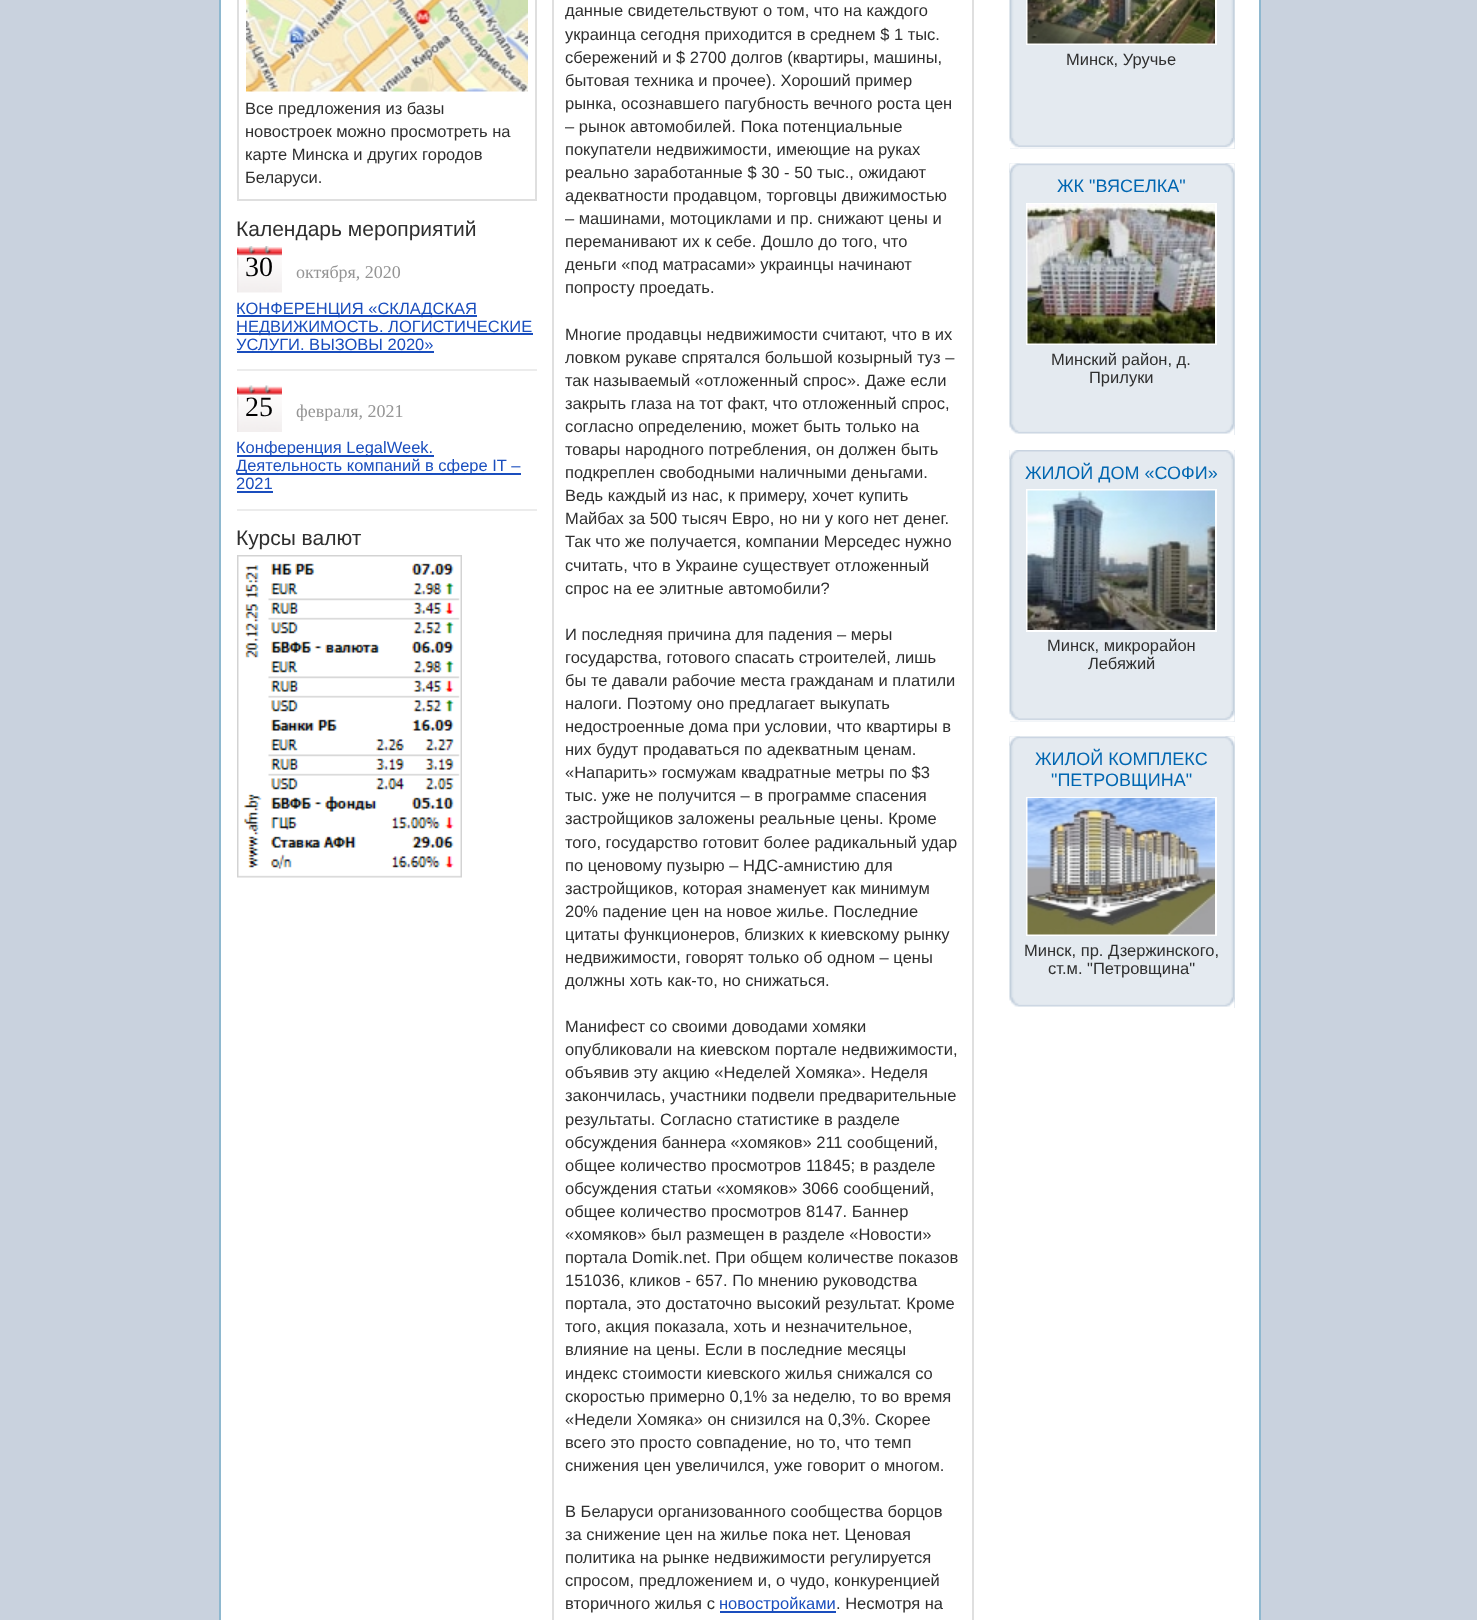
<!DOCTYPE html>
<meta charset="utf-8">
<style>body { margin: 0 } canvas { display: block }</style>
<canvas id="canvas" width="1477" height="1620"></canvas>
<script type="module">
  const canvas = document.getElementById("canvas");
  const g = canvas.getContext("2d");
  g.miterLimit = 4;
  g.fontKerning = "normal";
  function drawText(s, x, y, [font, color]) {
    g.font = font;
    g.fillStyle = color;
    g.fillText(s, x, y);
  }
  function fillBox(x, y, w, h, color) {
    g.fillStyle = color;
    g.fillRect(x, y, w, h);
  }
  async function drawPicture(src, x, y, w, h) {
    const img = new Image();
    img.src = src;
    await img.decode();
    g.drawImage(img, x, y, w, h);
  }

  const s1 = ["16.5px Liberation Sans", "#2F2F2F"];
  const s2 = ["21px Liberation Sans", "#2F2F2F"];
  const s3 = ["28px Liberation Serif", "#000000"];
  const s4 = ["18px Liberation Serif", "#959595"];
  const s5 = ["16.5px Liberation Sans", "#1A4EBE"];
  const s6 = ["18px Liberation Sans", "#0066B1"];

  fillBox(0, 0, 1477, 1620, "#C9D2DE");
  fillBox(221, 0, 1038, 1620, "#FFFFFF");
  fillBox(1259, 0, 2, 1620, "#8EB8CF");
  fillBox(219, 0, 2, 1620, "#8EB8CF");
  g.strokeStyle = "#DFDFDF";
  g.lineWidth = 2;
  g.strokeRect(238, -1, 298, 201);
  await drawPicture("pic1.png", 246, 0, 282, 92);
  drawText("Все предложения из базы", 245, 114, s1);
  drawText("новостроек можно просмотреть на", 245, 137, s1);
  drawText("карте Минска и других городов", 245, 160, s1);
  drawText("Беларуси.", 245, 183, s1);
  drawText("Календарь мероприятий", 236, 236, s2);
  fillBox(237, 369, 300, 2, "#ECECEC");
  await drawPicture("pic2.png", 237, 246, 45, 47);
  drawText("30", 245, 276, s3);
  drawText("октября, 2020", 296, 278, s4);
  fillBox(237, 315, 240, 2, "#1A4EBE");
  drawText("КОНФЕРЕНЦИЯ «СКЛАДСКАЯ", 236, 314, s5);
  fillBox(237, 333, 296, 2, "#1A4EBE");
  drawText("НЕДВИЖИМОСТЬ. ЛОГИСТИЧЕСКИЕ", 236, 332, s5);
  drawText("УСЛУГИ. ВЫЗОВЫ 2020»", 236, 350, s5);
  fillBox(237, 351, 197, 2, "#1A4EBE");
  fillBox(237, 509, 300, 2, "#ECECEC");
  await drawPicture("pic3.png", 237, 385, 45, 47);
  drawText("25", 245, 416, s3);
  drawText("февраля, 2021", 296, 417, s4);
  fillBox(237, 455, 197, 2, "#1A4EBE");
  drawText("Конференция LegalWeek.", 236, 453, s5);
  fillBox(237, 473, 284, 2, "#1A4EBE");
  drawText("Деятельность компаний в сфере IT –", 236, 471, s5);
  drawText("2021", 236, 489, s5);
  fillBox(237, 491, 36, 2, "#1A4EBE");
  drawText("Курсы валют", 236, 545, s2);
  await drawPicture("pic4.png", 237, 555, 225, 323);
  g.strokeRect(553, -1, 420, 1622);
  drawText("данные свидетельствуют о том, что на каждого", 565, 16, s1);
  drawText("украинца сегодня приходится в среднем $ 1 тыс.", 565, 40, s1);
  drawText("сбережений и $ 2700 долгов (квартиры, машины,", 565, 63, s1);
  drawText("бытовая техника и прочее). Хороший пример", 565, 86, s1);
  drawText("рынка, осознавшего пагубность вечного роста цен", 565, 109, s1);
  drawText("– рынок автомобилей. Пока потенциальные", 565, 132, s1);
  drawText("покупатели недвижимости, имеющие на руках", 565, 155, s1);
  drawText("реально заработанные $ 30 - 50 тыс., ожидают", 565, 178, s1);
  drawText("адекватности продавцом, торговцы движимостью", 565, 201, s1);
  drawText("– машинами, мотоциклами и пр. снижают цены и", 565, 224, s1);
  drawText("переманивают их к себе. Дошло до того, что", 565, 247, s1);
  drawText("деньги «под матрасами» украинцы начинают", 565, 270, s1);
  drawText("попросту проедать.", 565, 293, s1);
  drawText("Многие продавцы недвижимости считают, что в их", 565, 340, s1);
  drawText("ловком рукаве спрятался большой козырный туз –", 565, 363, s1);
  drawText("так называемый «отложенный спрос». Даже если", 565, 386, s1);
  drawText("закрыть глаза на тот факт, что отложенный спрос,", 565, 409, s1);
  drawText("согласно определению, может быть только на", 565, 432, s1);
  drawText("товары народного потребления, он должен быть", 565, 455, s1);
  drawText("подкреплен свободными наличными деньгами.", 565, 478, s1);
  drawText("Ведь каждый из нас, к примеру, хочет купить", 565, 501, s1);
  drawText("Майбах за 500 тысяч Евро, но ни у кого нет денег.", 565, 524, s1);
  drawText("Так что же получается, компании Мерседес нужно", 565, 547, s1);
  drawText("считать, что в Украине существует отложенный", 565, 571, s1);
  drawText("спрос на ее элитные автомобили?", 565, 594, s1);
  drawText("И последняя причина для падения – меры", 565, 640, s1);
  drawText("государства, готового спасать строителей, лишь", 565, 663, s1);
  drawText("бы те давали рабочие места гражданам и платили", 565, 686, s1);
  drawText("налоги. Поэтому оно предлагает выкупать", 565, 709, s1);
  drawText("недостроенные дома при условии, что квартиры в", 565, 732, s1);
  drawText("них будут продаваться по адекватным ценам.", 565, 755, s1);
  drawText("«Напарить» госмужам квадратные метры по $3", 565, 778, s1);
  drawText("тыс. уже не получится – в программе спасения", 565, 801, s1);
  drawText("застройщиков заложены реальные цены. Кроме", 565, 824, s1);
  drawText("того, государство готовит более радикальный удар", 565, 848, s1);
  drawText("по ценовому пузырю – НДС-амнистию для", 565, 871, s1);
  drawText("застройщиков, которая знаменует как минимум", 565, 894, s1);
  drawText("20% падение цен на новое жилье. Последние", 565, 917, s1);
  drawText("цитаты функционеров, близких к киевскому рынку", 565, 940, s1);
  drawText("недвижимости, говорят только об одном – цены", 565, 963, s1);
  drawText("должны хоть как-то, но снижаться.", 565, 986, s1);
  drawText("Манифест со своими доводами хомяки", 565, 1032, s1);
  drawText("опубликовали на киевском портале недвижимости,", 565, 1055, s1);
  drawText("объявив эту акцию «Неделей Хомяка». Неделя", 565, 1078, s1);
  drawText("закончилась, участники подвели предварительные", 565, 1101, s1);
  drawText("результаты. Согласно статистике в разделе", 565, 1125, s1);
  drawText("обсуждения баннера «хомяков» 211 сообщений,", 565, 1148, s1);
  drawText("общее количество просмотров 11845; в разделе", 565, 1171, s1);
  drawText("обсуждения статьи «хомяков» 3066 сообщений,", 565, 1194, s1);
  drawText("общее количество просмотров 8147. Баннер", 565, 1217, s1);
  drawText("«хомяков» был размещен в разделе «Новости»", 565, 1240, s1);
  drawText("портала Domik.net. При общем количестве показов", 565, 1263, s1);
  drawText("151036, кликов - 657. По мнению руководства", 565, 1286, s1);
  drawText("портала, это достаточно высокий результат. Кроме", 565, 1309, s1);
  drawText("того, акция показала, хоть и незначительное,", 565, 1332, s1);
  drawText("влияние на цены. Если в последние месяцы", 565, 1355, s1);
  drawText("индекс стоимости киевского жилья снижался со", 565, 1379, s1);
  drawText("скоростью примерно 0,1% за неделю, то во время", 565, 1402, s1);
  drawText("«Недели Хомяка» он снизился на 0,3%. Скорее", 565, 1425, s1);
  drawText("всего это просто совпадение, но то, что темп", 565, 1448, s1);
  drawText("снижения цен увеличился, уже говорит о многом.", 565, 1471, s1);
  drawText("В Беларуси организованного сообщества борцов", 565, 1517, s1);
  drawText("за снижение цен на жилье пока нет. Ценовая", 565, 1540, s1);
  drawText("политика на рынке недвижимости регулируется", 565, 1563, s1);
  drawText("спросом, предложением и, о чудо, конкуренцией", 565, 1586, s1);
  drawText("вторичного жилья с", 565, 1609, s1);
  fillBox(720, 1611, 116, 2, "#1A4EBE");
  drawText("новостройками", 719, 1609, s5);
  drawText(". Несмотря на", 836, 1609, s1);
  fillBox(1010, 0, 225, 149, "#E4EAF0");
  await drawPicture("pic5.png", 1009, 0, 11, 149);
  await drawPicture("pic6.png", 1231, 0, 4, 149);
  await drawPicture("pic7.png", 1018, 138, 217, 11);
  g.strokeStyle = "#FFFFFF";
  g.strokeRect(1027, -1, 189, 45);
  await drawPicture("pic8.png", 1027, 0, 188, 44);
  drawText("Минск, Уручье", 1066, 65, s1);
  fillBox(1020, 164, 215, 271, "#E4EAF0");
  await drawPicture("pic9.png", 1009, 163, 11, 272);
  await drawPicture("pic10.png", 1009, 163, 226, 10);
  await drawPicture("pic11.png", 1225, 163, 10, 272);
  await drawPicture("pic12.png", 1018, 424, 217, 11);
  drawText("ЖК \"ВЯСЕЛКА\"", 1057, 192, s6);
  g.strokeRect(1027, 204, 189, 140);
  await drawPicture("pic13.png", 1027, 204, 188, 140);
  drawText("Минский район, д.", 1051, 365, s1);
  drawText("Прилуки", 1089, 383, s1);
  fillBox(1010, 450, 225, 272, "#E4EAF0");
  await drawPicture("pic14.png", 1009, 450, 11, 272);
  await drawPicture("pic15.png", 1009, 450, 226, 9);
  await drawPicture("pic16.png", 1226, 450, 9, 272);
  await drawPicture("pic17.png", 1018, 711, 217, 11);
  drawText("ЖИЛОЙ ДОМ «СОФИ»", 1025, 479, s6);
  g.strokeRect(1027, 490, 189, 141);
  await drawPicture("pic18.png", 1027, 490, 188, 140);
  drawText("Минск, микрорайон", 1047, 651, s1);
  drawText("Лебяжий", 1088, 669, s1);
  fillBox(1020, 737, 215, 271, "#E4EAF0");
  await drawPicture("pic9.png", 1009, 736, 11, 272);
  await drawPicture("pic10.png", 1009, 736, 226, 10);
  await drawPicture("pic11.png", 1225, 736, 10, 272);
  await drawPicture("pic12.png", 1018, 997, 217, 11);
  drawText("ЖИЛОЙ КОМПЛЕКС", 1035, 765, s6);
  drawText("\"ПЕТРОВЩИНА\"", 1051, 786, s6);
  g.strokeRect(1027, 798, 189, 137);
  await drawPicture("pic19.png", 1027, 798, 188, 137);
  drawText("Минск, пр. Дзержинского,", 1024, 956, s1);
  drawText("ст.м. \"Петровщина\"", 1048, 974, s1);
</script>
